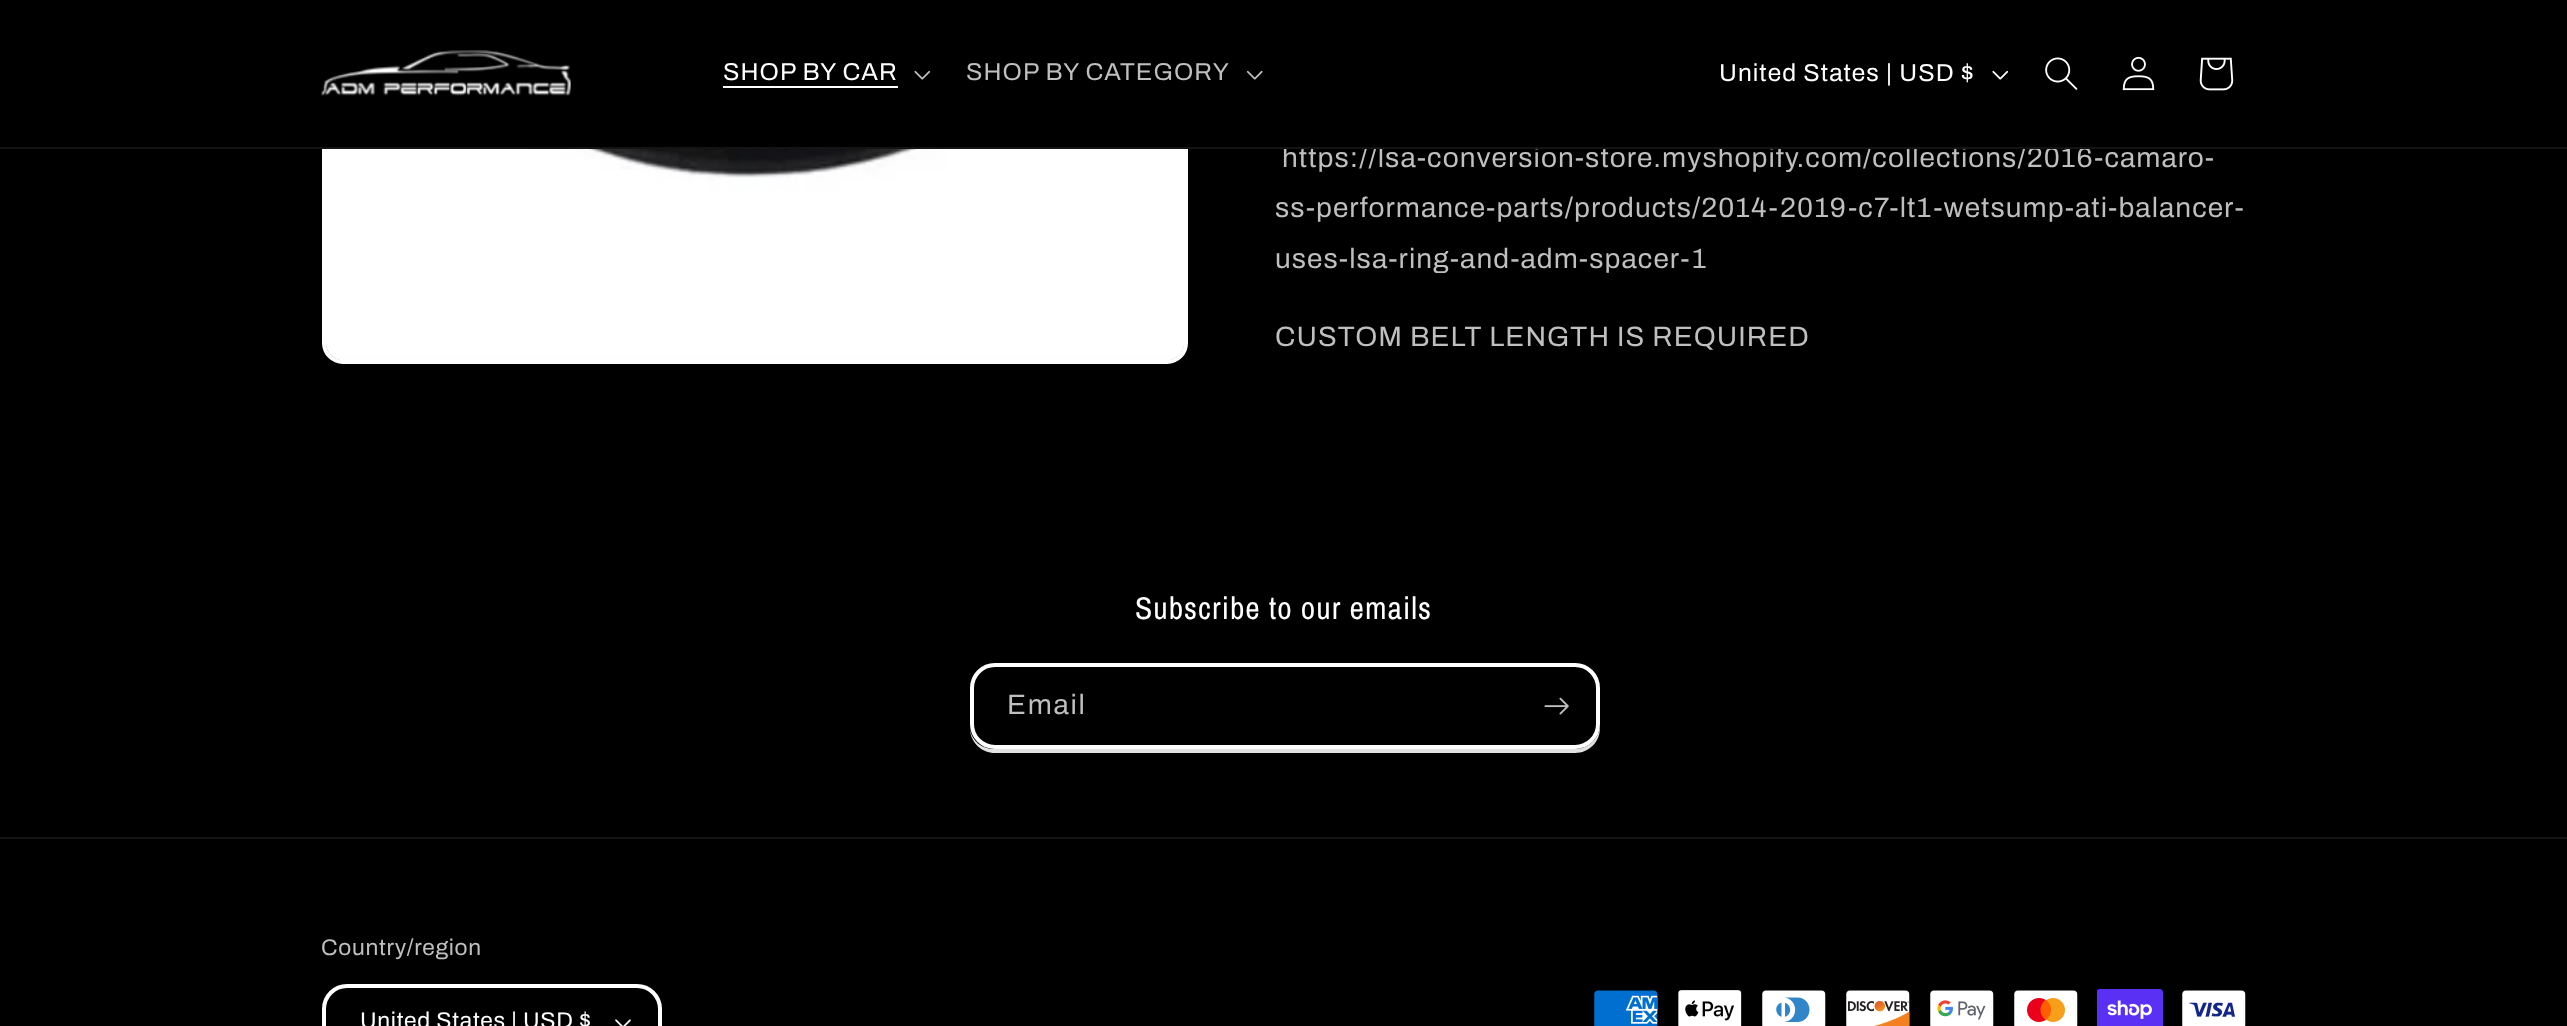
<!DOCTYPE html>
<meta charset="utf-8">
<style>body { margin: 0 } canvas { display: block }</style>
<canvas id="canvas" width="2567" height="1026"></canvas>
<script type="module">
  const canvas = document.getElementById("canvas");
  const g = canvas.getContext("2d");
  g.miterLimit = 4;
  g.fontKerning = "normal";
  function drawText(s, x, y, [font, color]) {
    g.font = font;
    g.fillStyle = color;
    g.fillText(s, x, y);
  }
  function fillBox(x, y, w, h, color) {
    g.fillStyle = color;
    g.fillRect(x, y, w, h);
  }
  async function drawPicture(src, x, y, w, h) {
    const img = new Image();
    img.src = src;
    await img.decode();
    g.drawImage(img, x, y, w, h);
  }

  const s1 = ["28px Archivo", "#BFBFBF"];
  const s2 = ["24.5px Archivo", "#FFFFFF"];
  const s3 = ["24.5px Archivo", "#BFBFBF"];
  const s4 = ["31.5px Archivo Narrow", "#FFFFFF"];
  const s5 = ["22.75px Archivo", "#BFBFBF"];
  const s6 = ["22.75px Archivo", "#FFFFFF"];

  fillBox(0, 0, 2567, 1026, "#000000");
  g.beginPath();
  g.roundRect(324, -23, 862, 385, 19);
  g.strokeStyle = "#FFFFFF";
  g.lineWidth = 4;
  g.stroke();
  g.letterSpacing = "1.05px";
  drawText("https://lsa-conversion-store.myshopify.com/collections/2016-camaro-", 1282, 167, s1);
  fillBox(322, 0, 1704, 147, "#000000");
  fillBox(0, 147, 2567, 2, "#141414");
  await drawPicture("pic1.png", 321, 50, 250, 46);
  drawText("SHOP BY CAR", 723, 80, s2);
  fillBox(723, 86, 175, 2, "#FFFFFF");
  await drawPicture("pic2.png", 914, 70, 17, 10);
  drawText("SHOP BY CATEGORY", 966, 80, s3);
  await drawPicture("pic3.png", 1246, 70, 17, 10);
  drawText("United States | USD $", 1719, 81, s2);
  await drawPicture("pic4.png", 1992, 70, 17, 10);
  await drawPicture("pic5.png", 2045, 57, 33, 33);
  await drawPicture("pic6.png", 2122, 56, 33, 35);
  await drawPicture("pic7.png", 2199, 57, 35, 34);
  await drawPicture("pic8.png", 326, 149, 858, 211);
  drawText("ss-performance-parts/products/2014-2019-c7-lt1-wetsump-ati-balancer-", 1275, 217, s1);
  drawText("uses-lsa-ring-and-adm-spacer-1", 1275, 268, s1);
  drawText("CUSTOM BELT LENGTH IS REQUIRED", 1275, 346, s1);
  drawText("Subscribe to our emails", 1135, 619, s4);
  g.fillStyle = "#E2E2E2";
  g.beginPath();
  g.moveTo(970, 730);
  g.bezierCurveTo(971, 743, 982, 753, 995, 753);
  g.lineTo(1575, 753);
  g.bezierCurveTo(1589, 753, 1600, 742, 1600, 728);
  g.lineTo(1600, 692);
  g.lineTo(1599, 687);
  g.lineTo(1600, 724);
  g.bezierCurveTo(1600, 738, 1589, 749, 1575, 749);
  g.lineTo(994, 749);
  g.bezierCurveTo(982, 749, 972, 741, 970, 730);
  g.closePath();
  g.fill();
  g.beginPath();
  g.roundRect(972, 665, 626, 82, 23);
  g.stroke();
  g.letterSpacing = "1.75px";
  drawText("Email", 1007, 714, s1);
  await drawPicture("pic9.png", 1544, 697, 25, 18);
  fillBox(0, 837, 2567, 2, "#141414");
  g.letterSpacing = "0.7px";
  drawText("Country/region", 321, 955, s5);
  await drawPicture("pic10.png", 615, 1019, 16, 7);
  g.beginPath();
  g.roundRect(324, 986, 336, 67, 23);
  g.stroke();
  drawText("United States | USD $", 360, 1028, s6);
  await drawPicture("pic11.png", 1594, 990, 64, 36);
  await drawPicture("pic12.png", 1678, 990, 64, 36);
  await drawPicture("pic13.png", 1762, 990, 64, 36);
  await drawPicture("pic14.png", 1846, 990, 64, 36);
  await drawPicture("pic15.png", 1930, 990, 64, 36);
  await drawPicture("pic16.png", 2014, 990, 64, 36);
  await drawPicture("pic17.png", 2097, 989, 66, 37);
  await drawPicture("pic18.png", 2182, 990, 64, 36);
</script>
